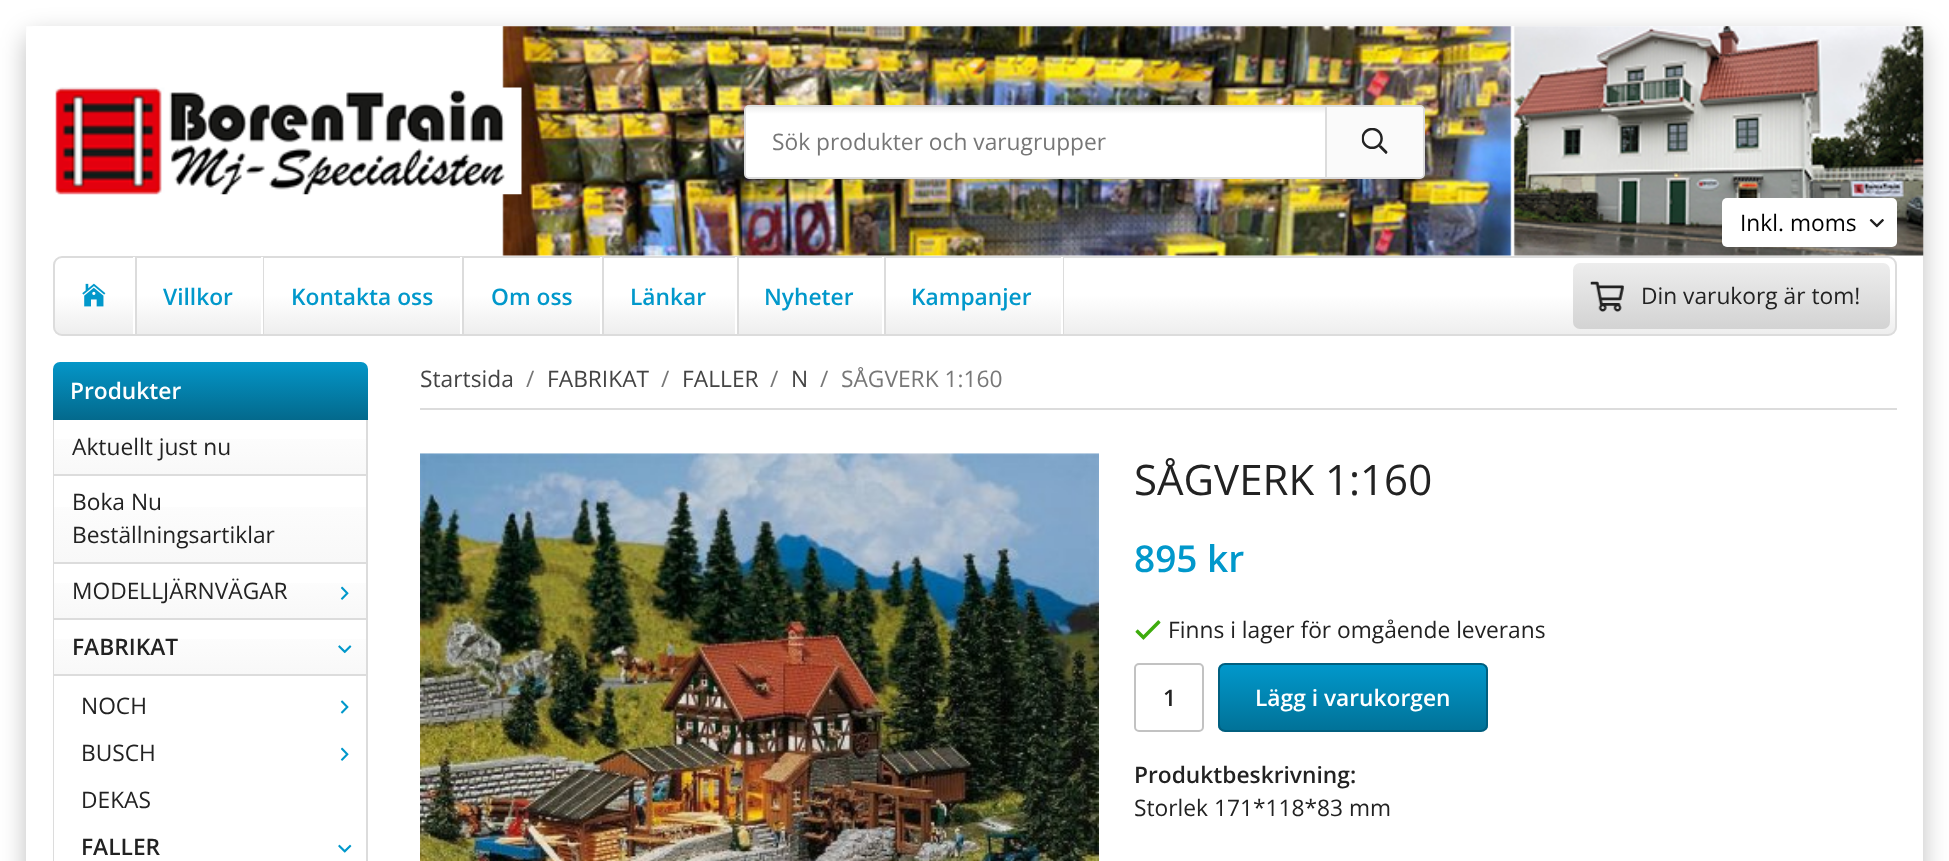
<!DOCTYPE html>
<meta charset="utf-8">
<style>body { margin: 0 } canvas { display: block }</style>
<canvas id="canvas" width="1949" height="861"></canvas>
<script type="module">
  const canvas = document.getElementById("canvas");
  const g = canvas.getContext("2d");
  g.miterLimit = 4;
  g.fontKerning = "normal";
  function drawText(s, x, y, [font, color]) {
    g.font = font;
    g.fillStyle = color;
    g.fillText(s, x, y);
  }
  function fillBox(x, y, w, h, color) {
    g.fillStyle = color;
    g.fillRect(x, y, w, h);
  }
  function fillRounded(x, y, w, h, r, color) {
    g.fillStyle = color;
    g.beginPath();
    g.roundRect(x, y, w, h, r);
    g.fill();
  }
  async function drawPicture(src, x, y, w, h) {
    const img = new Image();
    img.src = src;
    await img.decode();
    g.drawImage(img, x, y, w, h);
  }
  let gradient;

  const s1 = ["22.75px Open Sans", "#777777"];
  const s2 = ["22.75px Open Sans", "#000000"];
  const s3 = ["600 22.75px Open Sans", "#0198CB"];
  const s4 = ["22.75px Open Sans", "#222222"];
  const s5 = ["600 22.75px Open Sans", "#FFFFFF"];
  const s6 = ["600 22.75px Open Sans", "#222222"];
  const s7 = ["22.75px Open Sans", "#444444"];
  const s8 = ["42px Open Sans", "#222222"];
  const s9 = ["600 37px Open Sans", "#0198CB"];

  fillBox(0, 0, 1949, 861, "#FFFFFF");
  g.fillStyle = "rgba(0, 0, 0, 0.25)";
  g.filter = "blur(13px)";
  g.beginPath();
  g.roundRect(26, 35, 1897, 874, 9);
  g.fill();
  g.filter = "none";
  fillRounded(26, 26, 1897, 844, 9, "#FFFFFF");
  await drawPicture("pic1.png", 26, 26, 1898, 230);
  await drawPicture("pic2.png", 55, 87, 467, 108);
  g.beginPath();
  g.roundRect(745, 106, 679, 72, 4);
  g.fill();
  g.strokeStyle = "#DCDCDC";
  g.lineWidth = 2;
  g.stroke();
  gradient = g.createLinearGradient(1035, 177, 1035, 107);
  gradient.addColorStop(0.9, "#FFFFFF");
  gradient.addColorStop(1, "#EEEEEE");
  g.fillStyle = gradient;
  g.beginPath();
  g.roundRect(746, 107, 579, 70, [4, 0, 0, 4]);
  g.fill();
  drawText("Sök produkter och varugrupper", 772, 150, s1);
  g.fillStyle = "#FAFAFA";
  g.beginPath();
  g.roundRect(1325, 107, 98, 70, [0, 4, 4, 0]);
  g.fill();
  fillBox(1325, 107, 2, 70, "#DCDCDC");
  await drawPicture("pic3.png", 1361, 128, 27, 26);
  fillRounded(1722, 198, 175, 49, 5, "#FFFFFF");
  drawText("Inkl. moms", 1740, 231, s2);
  await drawPicture("pic4.png", 1869, 219, 15, 9);
  g.save();
  g.beginPath();
  g.roundRect(53, 256, 1844, 80, 9);
  g.clip();
  gradient = g.createLinearGradient(975, 257, 975, 334);
  gradient.addColorStop(0.5, "#FFFFFF");
  gradient.addColorStop(1, "#EEEEEE");
  g.fillStyle = gradient;
  g.fillRect(53, 257, 1844, 77);
  g.restore();
  g.beginPath();
  g.roundRect(54, 257, 1842, 78, 8);
  g.stroke();
  g.fillStyle = "#DCDCDC";
  g.beginPath();
  g.moveTo(56, 257);
  g.lineTo(135, 257);
  g.lineTo(135, 334);
  g.lineTo(137, 334);
  g.lineTo(137, 257);
  g.closePath();
  g.fill();
  fillBox(133, 257, 2, 77, "#FFFFFF");
  await drawPicture("pic5.png", 82, 283, 24, 24);
  g.fillStyle = "#DCDCDC";
  g.beginPath();
  g.moveTo(137, 257);
  g.lineTo(262, 257);
  g.lineTo(262, 334);
  g.lineTo(264, 334);
  g.lineTo(264, 257);
  g.closePath();
  g.fill();
  fillBox(261, 257, 2, 77, "#FFFFFF");
  drawText("Villkor", 163, 305, s3);
  g.fillStyle = "#DCDCDC";
  g.beginPath();
  g.moveTo(264, 257);
  g.lineTo(462, 257);
  g.lineTo(462, 334);
  g.lineTo(464, 334);
  g.lineTo(464, 257);
  g.closePath();
  g.fill();
  fillBox(460, 257, 2, 77, "#FFFFFF");
  drawText("Kontakta oss", 291, 305, s3);
  g.fillStyle = "#DCDCDC";
  g.beginPath();
  g.moveTo(464, 257);
  g.lineTo(602, 257);
  g.lineTo(602, 334);
  g.lineTo(604, 334);
  g.lineTo(604, 257);
  g.closePath();
  g.fill();
  fillBox(600, 257, 2, 77, "#FFFFFF");
  drawText("Om oss", 491, 305, s3);
  g.fillStyle = "#DCDCDC";
  g.beginPath();
  g.moveTo(604, 257);
  g.lineTo(737, 257);
  g.lineTo(737, 334);
  g.lineTo(739, 334);
  g.lineTo(739, 257);
  g.closePath();
  g.fill();
  fillBox(735, 257, 2, 77, "#FFFFFF");
  drawText("Länkar", 630, 305, s3);
  g.fillStyle = "#DCDCDC";
  g.beginPath();
  g.moveTo(739, 257);
  g.lineTo(884, 257);
  g.lineTo(884, 334);
  g.lineTo(886, 334);
  g.lineTo(886, 257);
  g.closePath();
  g.fill();
  fillBox(882, 257, 2, 77, "#FFFFFF");
  drawText("Nyheter", 764, 305, s3);
  g.fillStyle = "#DCDCDC";
  g.beginPath();
  g.moveTo(886, 257);
  g.lineTo(1062, 257);
  g.lineTo(1062, 334);
  g.lineTo(1064, 334);
  g.lineTo(1064, 257);
  g.closePath();
  g.fill();
  fillBox(1061, 257, 2, 77, "#FFFFFF");
  drawText("Kampanjer", 911, 305, s3);
  gradient = g.createLinearGradient(1732, 263, 1732, 329);
  gradient.addColorStop(0, "#EDEDED");
  gradient.addColorStop(1, "#D3D3D3");
  g.fillStyle = gradient;
  g.beginPath();
  g.roundRect(1573, 263, 317, 66, 7);
  g.fill();
  await drawPicture("pic6.png", 1590, 281, 34, 31);
  drawText("Din varukorg är tom!", 1641, 304, s4);
  gradient = g.createLinearGradient(210, 362, 210, 420);
  gradient.addColorStop(0, "#0496C8");
  gradient.addColorStop(1, "#03698C");
  g.fillStyle = gradient;
  g.beginPath();
  g.roundRect(53, 362, 315, 58, [7, 7, 0, 0]);
  g.fill();
  drawText("Produkter", 70, 399, s5);
  fillBox(366, 420, 2, 441, "#DCDCDC");
  fillBox(53, 420, 1, 441, "#DCDCDC");
  gradient = g.createLinearGradient(210, 420, 210, 474);
  gradient.addColorStop(0, "#FFFFFF");
  gradient.addColorStop(1, "#F8F8F8");
  g.fillStyle = gradient;
  g.fillRect(54, 439, 312, 35);
  fillBox(54, 474, 312, 2, "#DCDCDC");
  drawText("Aktuellt just nu", 72, 455, s4);
  gradient = g.createLinearGradient(210, 476, 210, 562);
  gradient.addColorStop(0, "#FFFFFF");
  gradient.addColorStop(1, "#F8F8F8");
  g.fillStyle = gradient;
  g.fillRect(54, 507, 312, 55);
  fillBox(54, 562, 312, 2, "#DCDCDC");
  drawText("Boka Nu", 72, 510, s4);
  drawText("Beställningsartiklar", 72, 543, s4);
  gradient = g.createLinearGradient(210, 564, 210, 618);
  gradient.addColorStop(0, "#FFFFFF");
  gradient.addColorStop(1, "#F8F8F8");
  g.fillStyle = gradient;
  g.fillRect(54, 583, 312, 35);
  fillBox(54, 618, 312, 2, "#DCDCDC");
  drawText("MODELLJÄRNVÄGAR", 72, 599, s4);
  await drawPicture("pic7.png", 340, 586, 9, 14);
  gradient = g.createLinearGradient(210, 620, 210, 674);
  gradient.addColorStop(0, "#FFFFFF");
  gradient.addColorStop(1, "#F8F8F8");
  g.fillStyle = gradient;
  g.fillRect(54, 639, 312, 35);
  fillBox(54, 674, 312, 2, "#DCDCDC");
  drawText("FABRIKAT", 72, 655, s6);
  await drawPicture("pic8.png", 338, 645, 14, 9);
  drawText("NOCH", 81, 714, s4);
  await drawPicture("pic9.png", 340, 700, 9, 14);
  drawText("BUSCH", 81, 761, s4);
  await drawPicture("pic10.png", 340, 747, 9, 14);
  drawText("DEKAS", 81, 808, s4);
  drawText("FALLER", 81, 855, s6);
  await drawPicture("pic11.png", 338, 844, 14, 9);
  fillBox(420, 408, 1477, 2, "#DCDCDC");
  drawText("Startsida", 420, 387, s7);
  drawText("/", 526, 387, s1);
  drawText("FABRIKAT", 547, 387, s7);
  drawText("/", 661, 387, s1);
  drawText("FALLER", 682, 387, s7);
  drawText("/", 770, 387, s1);
  drawText("N", 791, 387, s7);
  drawText("/", 820, 387, s1);
  drawText("SÅGVERK 1:160", 841, 387, s1);
  await drawPicture("pic12.png", 420, 453, 679, 408);
  drawText("SÅGVERK 1:160", 1134, 495, s8);
  drawText("895 kr", 1134, 572, s9);
  await drawPicture("pic13.png", 1135, 620, 26, 20);
  drawText("Finns i lager för omgående leverans", 1168, 638, s4);
  g.beginPath();
  g.roundRect(1135, 664, 68, 67, 4);
  g.strokeStyle = "#C2C2C2";
  g.stroke();
  drawText("1", 1163, 706, s6);
  g.save();
  g.beginPath();
  g.roundRect(1218, 663, 270, 69, 7);
  g.clip();
  gradient = g.createLinearGradient(1353, 665, 1353, 730);
  gradient.addColorStop(0, "#0198CB");
  gradient.addColorStop(1, "#017298");
  g.fillStyle = gradient;
  g.fillRect(1218, 665, 270, 65);
  g.restore();
  g.beginPath();
  g.roundRect(1219, 664, 268, 67, 6);
  g.strokeStyle = "#015F7F";
  g.stroke();
  drawText("Lägg i varukorgen", 1255, 706, s5);
  drawText("Produktbeskrivning:", 1134, 783, s6);
  drawText("Storlek 171*118*83 mm", 1134, 816, s4);
</script>
